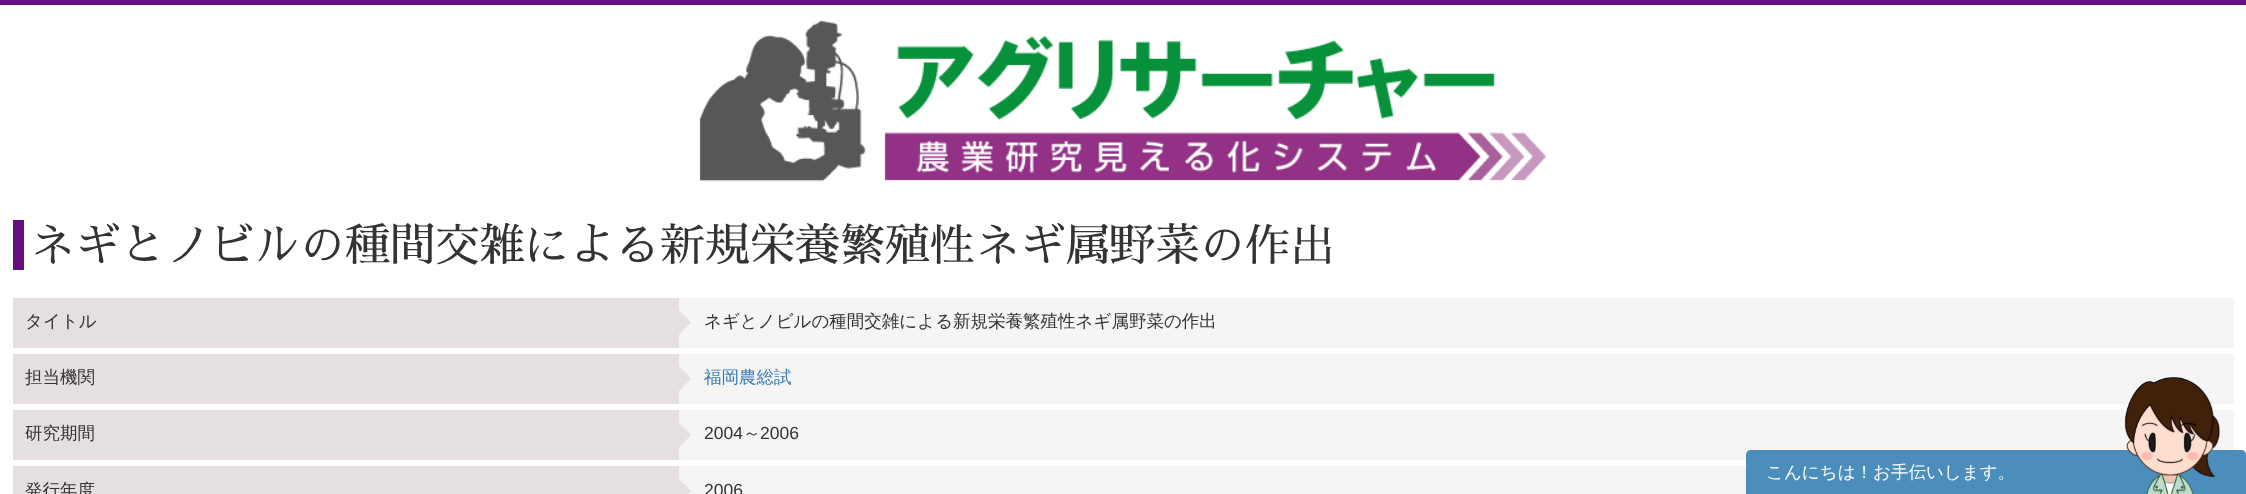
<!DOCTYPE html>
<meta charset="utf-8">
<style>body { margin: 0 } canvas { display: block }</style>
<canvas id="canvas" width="2246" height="494"></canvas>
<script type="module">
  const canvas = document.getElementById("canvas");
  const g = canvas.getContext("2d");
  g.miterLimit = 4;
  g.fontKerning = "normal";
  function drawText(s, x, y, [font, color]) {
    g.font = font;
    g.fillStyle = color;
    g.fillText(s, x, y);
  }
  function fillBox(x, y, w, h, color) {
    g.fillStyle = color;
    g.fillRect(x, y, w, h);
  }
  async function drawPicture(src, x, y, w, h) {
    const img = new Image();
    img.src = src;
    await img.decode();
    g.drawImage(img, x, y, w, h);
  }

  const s1 = ["45px Sawarabi Mincho", "#333333"];
  const s2 = ["500 17.5px WenQuanYi Zen Hei", "#333333"];
  const s3 = ["500 17.5px WenQuanYi Zen Hei", "#337AB7"];
  const s4 = ["17.5px Liberation Sans", "#333333"];
  const s5 = ["500 17.5px WenQuanYi Zen Hei", "#FFFFFF"];

  fillBox(0, 0, 2246, 494, "#FFFFFF");
  fillBox(0, 0, 2246, 5, "#660F83");
  await drawPicture("pic1.png", 699, 20, 848, 162);
  fillBox(13, 220, 11, 50, "#660F83");
  drawText("ネギとノビルの種間交雑による新規栄養繁殖性ネギ属野菜の作出", 30, 261, s1);
  fillBox(13, 298, 666, 50, "#E6DFE1");
  drawText("タイトル", 25, 327, s2);
  fillBox(679, 298, 1555, 50, "#F5F5F5");
  g.fillStyle = "#E6DFE1";
  g.beginPath();
  g.moveTo(679, 335);
  g.lineTo(679, 310);
  g.lineTo(691, 322.5);
  g.closePath();
  g.fill();
  drawText("ネギとノビルの種間交雑による新規栄養繁殖性ネギ属野菜の作出", 704, 327, s2);
  fillBox(13, 354, 666, 50, "#E6DFE1");
  drawText("担当機関", 25, 383, s2);
  fillBox(679, 354, 1555, 50, "#F5F5F5");
  g.fillStyle = "#E6DFE1";
  g.beginPath();
  g.moveTo(679, 391);
  g.lineTo(679, 366);
  g.lineTo(691, 379);
  g.closePath();
  g.fill();
  drawText("福岡農総試", 704, 383, s3);
  fillBox(13, 410, 666, 50, "#E6DFE1");
  drawText("研究期間", 25, 439, s2);
  fillBox(679, 410, 1555, 50, "#F5F5F5");
  g.fillStyle = "#E6DFE1";
  g.beginPath();
  g.moveTo(679, 447.5);
  g.lineTo(679, 422.5);
  g.lineTo(691, 435);
  g.closePath();
  g.fill();
  drawText("2004", 704, 439, s4);
  drawText("～", 743, 439, s2);
  drawText("2006", 760, 439, s4);
  fillBox(13, 466, 666, 28, "#E6DFE1");
  drawText("発行年度", 25, 496, s2);
  fillBox(679, 466, 1067, 28, "#F5F5F5");
  g.fillStyle = "#E6DFE1";
  g.beginPath();
  g.moveTo(679, 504);
  g.lineTo(679, 479);
  g.lineTo(691, 491);
  g.closePath();
  g.fill();
  drawText("2006", 704, 496, s4);
  g.fillStyle = "#4B8DBB";
  g.beginPath();
  g.moveTo(1751, 450);
  g.lineTo(2241, 450);
  g.bezierCurveTo(2244, 450, 2246, 452, 2246, 455);
  g.lineTo(2246, 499);
  g.lineTo(1746, 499);
  g.lineTo(1746, 455);
  g.bezierCurveTo(1746, 452, 1748, 450, 1751, 450);
  g.closePath();
  g.fill();
  drawText("こんにちは！お手伝いします。", 1766, 478, s5);
  await drawPicture("pic2.png", 2124, 377, 96, 117);
</script>
